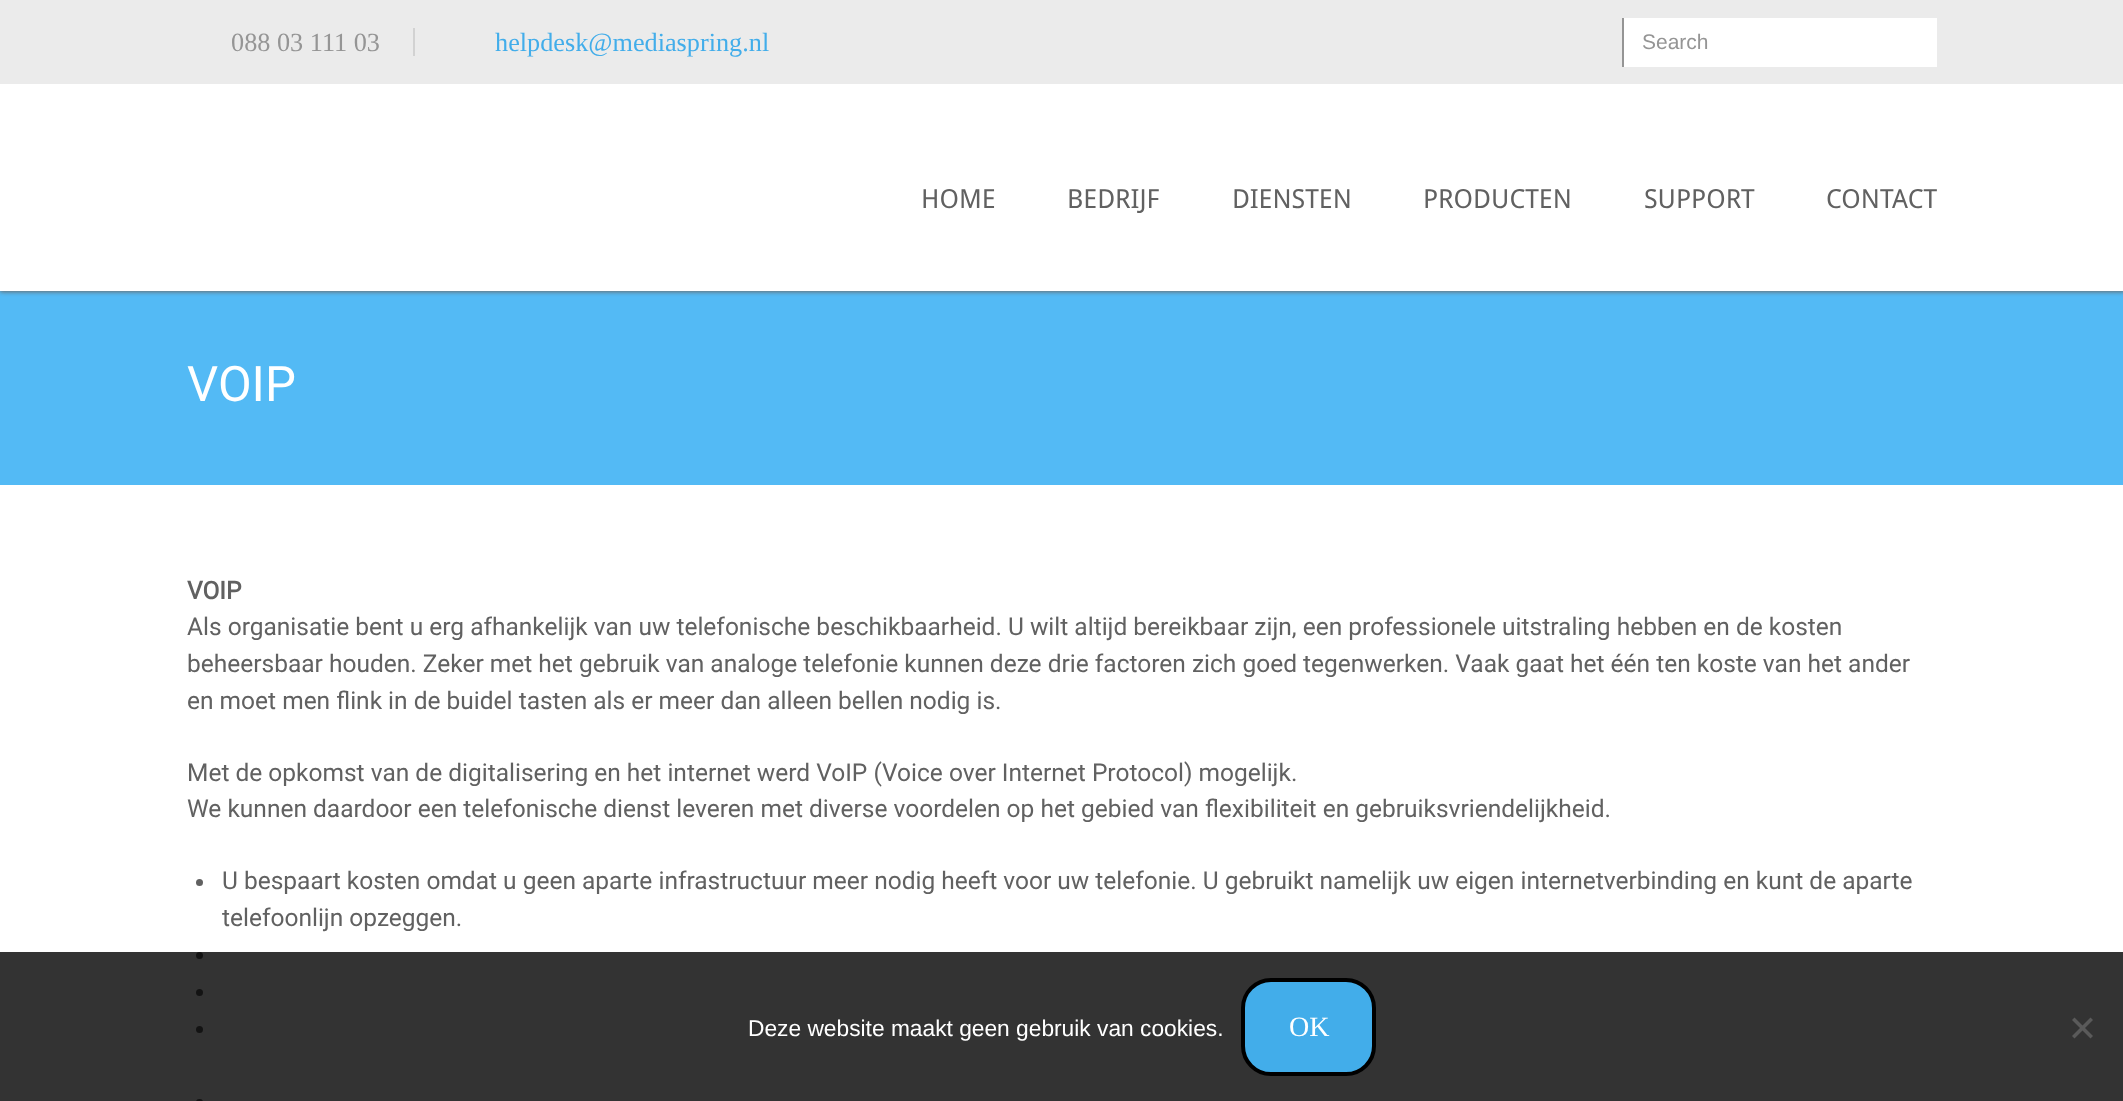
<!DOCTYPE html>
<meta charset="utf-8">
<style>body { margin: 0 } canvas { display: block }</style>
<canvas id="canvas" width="2123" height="1101"></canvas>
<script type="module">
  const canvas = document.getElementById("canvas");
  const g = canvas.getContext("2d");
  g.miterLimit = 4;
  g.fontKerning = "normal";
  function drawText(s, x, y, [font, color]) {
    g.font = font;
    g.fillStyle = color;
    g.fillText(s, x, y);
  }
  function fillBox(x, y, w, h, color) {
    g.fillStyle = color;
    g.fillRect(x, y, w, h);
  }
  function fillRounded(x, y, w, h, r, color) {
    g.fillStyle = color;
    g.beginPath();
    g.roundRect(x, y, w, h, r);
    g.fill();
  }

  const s1 = ["26.25px Liberation Serif", "#959595"];
  const s2 = ["26.25px Liberation Serif", "#42ADEA"];
  const s3 = ["21px Liberation Sans", "#959595"];
  const s4 = ["26.25px Droid Sans", "#616161"];
  const s5 = ["49px Roboto", "#FFFFFF"];
  const s6 = ["bold 24.5px Roboto", "#616161"];
  const s7 = ["24.5px Roboto", "#616161"];
  const s8 = ["22.75px Liberation Sans", "#FFFFFF"];
  const s9 = ["28px Liberation Serif", "#FFFFFF"];

  fillBox(0, 0, 2123, 1101, "#FFFFFF");
  fillBox(0, 291, 2123, 194, "#53BAF5");
  g.fillStyle = "#6B6B6B";
  g.filter = "blur(2px)";
  g.beginPath();
  g.rect(0, 2, 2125, 290);
  g.fill();
  g.filter = "none";
  fillBox(0, 84, 2123, 207, "#FFFFFF");
  fillBox(0, 0, 2123, 84, "#EBEBEB");
  drawText("088 03 111 03", 231, 51, s1);
  drawText("helpdesk@mediaspring.nl", 495, 51, s2);
  fillBox(413, 28, 2, 28, "#D2D2D2");
  fillBox(1624, 18, 313, 49, "#FFFFFF");
  fillBox(1622, 18, 2, 49, "#959595");
  drawText("Search", 1642, 49, s3);
  drawText("HOME", 921, 208, s4);
  drawText("BEDRIJF", 1067, 208, s4);
  drawText("DIENSTEN", 1232, 208, s4);
  drawText("PRODUCTEN", 1423, 208, s4);
  drawText("SUPPORT", 1644, 208, s4);
  drawText("CONTACT", 1826, 208, s4);
  drawText("VOIP", 187, 401, s5);
  drawText("VOIP", 187, 599, s6);
  drawText("Als organisatie bent u erg afhankelijk van uw telefonische beschikbaarheid. U wilt altijd bereikbaar zijn, een professionele uitstraling hebben en de kosten", 187, 635, s7);
  drawText("beheersbaar houden. Zeker met het gebruik van analoge telefonie kunnen deze drie factoren zich goed tegenwerken. Vaak gaat het één ten koste van het ander", 187, 672, s7);
  drawText("en moet men flink in de buidel tasten als er meer dan alleen bellen nodig is.", 187, 709, s7);
  drawText("Met de opkomst van de digitalisering en het internet werd VoIP (Voice over Internet Protocol) mogelijk.", 187, 781, s7);
  drawText("We kunnen daardoor een telefonische dienst leveren met diverse voordelen op het gebied van flexibiliteit en gebruiksvriendelijkheid.", 187, 817, s7);
  g.beginPath();
  g.arc(199.5, 882.5, 3.5, 0, Math.PI * 2);
  g.fill();
  drawText("U bespaart kosten omdat u geen aparte infrastructuur meer nodig heeft voor uw telefonie. U gebruikt namelijk uw eigen internetverbinding en kunt de aparte", 222, 889, s7);
  drawText("telefoonlijn opzeggen.", 222, 926, s7);
  g.beginPath();
  g.arc(199.5, 955.5, 3.5, 0, Math.PI * 2);
  g.fill();
  g.beginPath();
  g.arc(199.5, 992.5, 3.5, 0, Math.PI * 2);
  g.fill();
  g.beginPath();
  g.arc(199.5, 1029.5, 3.5, 0, Math.PI * 2);
  g.fill();
  fillRounded(196, 1099, 7, 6, 3.5, "#616161");
  fillBox(0, 952, 2123, 149, "rgba(0, 0, 0, 0.8)");
  drawText("Deze website maakt geen gebruik van cookies.", 748, 1036, s8);
  g.fillStyle = "#42ADEA";
  g.beginPath();
  g.roundRect(1243, 980, 131, 94, 28);
  g.fill();
  g.strokeStyle = "#000000";
  g.lineWidth = 4;
  g.stroke();
  drawText("OK", 1289, 1036, s9);
  g.fillStyle = "#5A5A5A";
  g.beginPath();
  g.moveTo(2090.5, 1017.5);
  g.lineTo(2093, 1020);
  g.lineTo(2074.5, 1038.5);
  g.lineTo(2072, 1036);
  g.closePath();
  g.fill();
  g.beginPath();
  g.moveTo(2072, 1020);
  g.lineTo(2074.5, 1017.5);
  g.lineTo(2093, 1036);
  g.lineTo(2090.5, 1038.5);
  g.closePath();
  g.fill();
</script>
